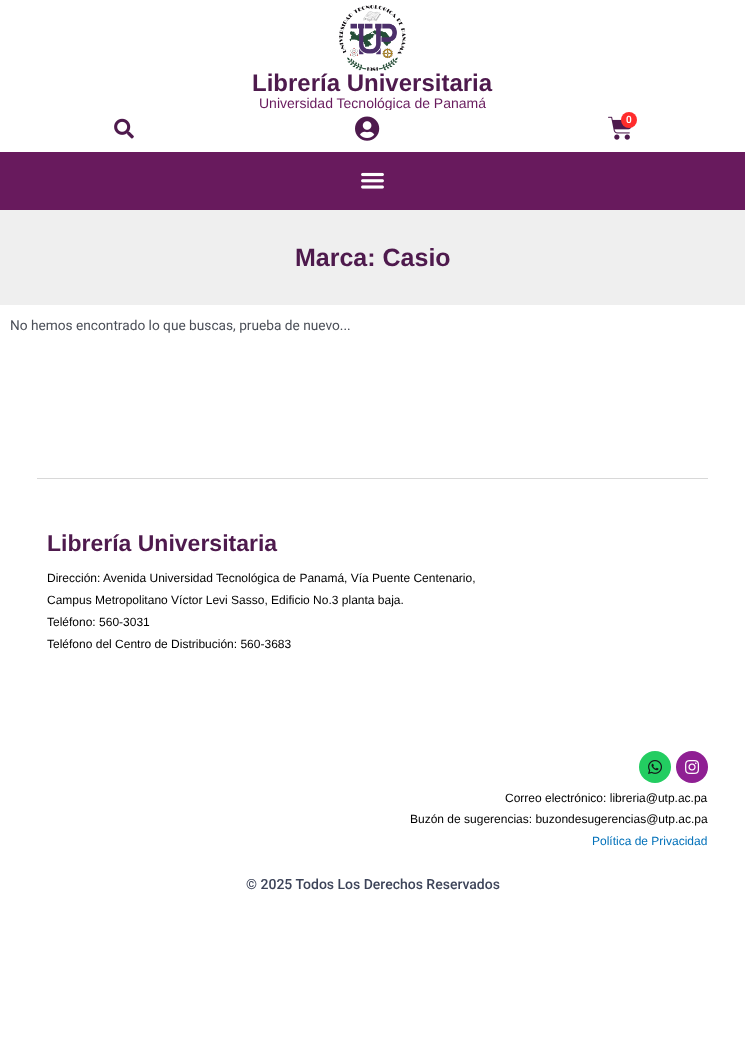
<!DOCTYPE html>
<meta charset="utf-8">
<style>body { margin: 0 } canvas { display: block }</style>
<canvas id="canvas" width="745" height="1064"></canvas>
<script type="module">
  const canvas = document.getElementById("canvas");
  const g = canvas.getContext("2d");
  g.miterLimit = 4;
  g.fontKerning = "normal";
  function drawText(s, x, y, [font, color]) {
    g.font = font;
    g.fillStyle = color;
    g.fillText(s, x, y);
  }
  function fillBox(x, y, w, h, color) {
    g.fillStyle = color;
    g.fillRect(x, y, w, h);
  }
  async function drawPicture(src, x, y, w, h) {
    const img = new Image();
    img.src = src;
    await img.decode();
    g.drawImage(img, x, y, w, h);
  }

  const s1 = ["bold 24px Liberation Sans", "#4E1A4D"];
  const s2 = ["14px Liberation Sans", "#681A5D"];
  const s3 = ["600 10px Roboto", "#FFFFFF"];
  const s4 = ["bold 25px Liberation Sans", "#4E1A4D"];
  const s5 = ["13.7px Roboto", "#4B4F58"];
  const s6 = ["bold 23px Liberation Sans", "#4E1A4D"];
  const s7 = ["12px Liberation Sans", "#000000"];
  const s8 = ["12px Liberation Sans", "#0170B9"];
  const s9 = ["500 14px Roboto", "#3D4459"];

  fillBox(0, 0, 745, 1064, "#FFFFFF");
  await drawPicture("pic1.png", 339, 5, 67, 66);
  drawText("Librería Universitaria", 252, 91, s1);
  g.save();
  g.beginPath();
  g.rect(0, 5, 745, 105);
  g.clip();
  drawText("Universidad Tecnológica de Panamá", 259, 108, s2);
  g.restore();
  await drawPicture("pic2.png", 114, 118, 20, 21);
  await drawPicture("pic3.png", 355, 116, 25, 25);
  await drawPicture("pic4.png", 608, 116, 24, 24);
  g.fillStyle = "#FF2C2C";
  g.beginPath();
  g.arc(629, 120, 8, 0, Math.PI * 2);
  g.fill();
  drawText("0", 626, 123, s3);
  fillBox(0, 152, 745, 58, "#681A5D");
  await drawPicture("pic5.png", 361, 172, 23, 17);
  fillBox(0, 210, 745, 95, "#EFEFEF");
  drawText("Marca: Casio", 295, 266, s4);
  drawText("No hemos encontrado lo que buscas, prueba de nuevo...", 10, 330, s5);
  fillBox(37, 478, 671, 1, "#D8D8D8");
  drawText("Librería Universitaria", 47, 551, s6);
  drawText("Dirección: Avenida Universidad Tecnológica de Panamá, Vía Puente Centenario,", 47, 582, s7);
  drawText("Campus Metropolitano Víctor Levi Sasso, Edificio No.3 planta baja.", 47, 604, s7);
  drawText("Teléfono: 560-3031", 47, 626, s7);
  drawText("Teléfono del Centro de Distribución: 560-3683", 47, 648, s7);
  g.fillStyle = "#23CD61";
  g.beginPath();
  g.arc(655, 767, 16, 0, Math.PI * 2);
  g.fill();
  await drawPicture("pic6.png", 648, 760, 14, 14);
  g.fillStyle = "#8F1F93";
  g.beginPath();
  g.arc(692, 767, 16, 0, Math.PI * 2);
  g.fill();
  await drawPicture("pic7.png", 685, 760, 15, 14);
  drawText("Correo electrónico: libreria@utp.ac.pa", 505, 802, s7);
  drawText("Buzón de sugerencias: buzondesugerencias@utp.ac.pa", 410, 823, s7);
  drawText("Política de Privacidad", 592, 845, s8);
  drawText("© 2025 Todos Los Derechos Reservados", 246, 889, s9);
</script>
